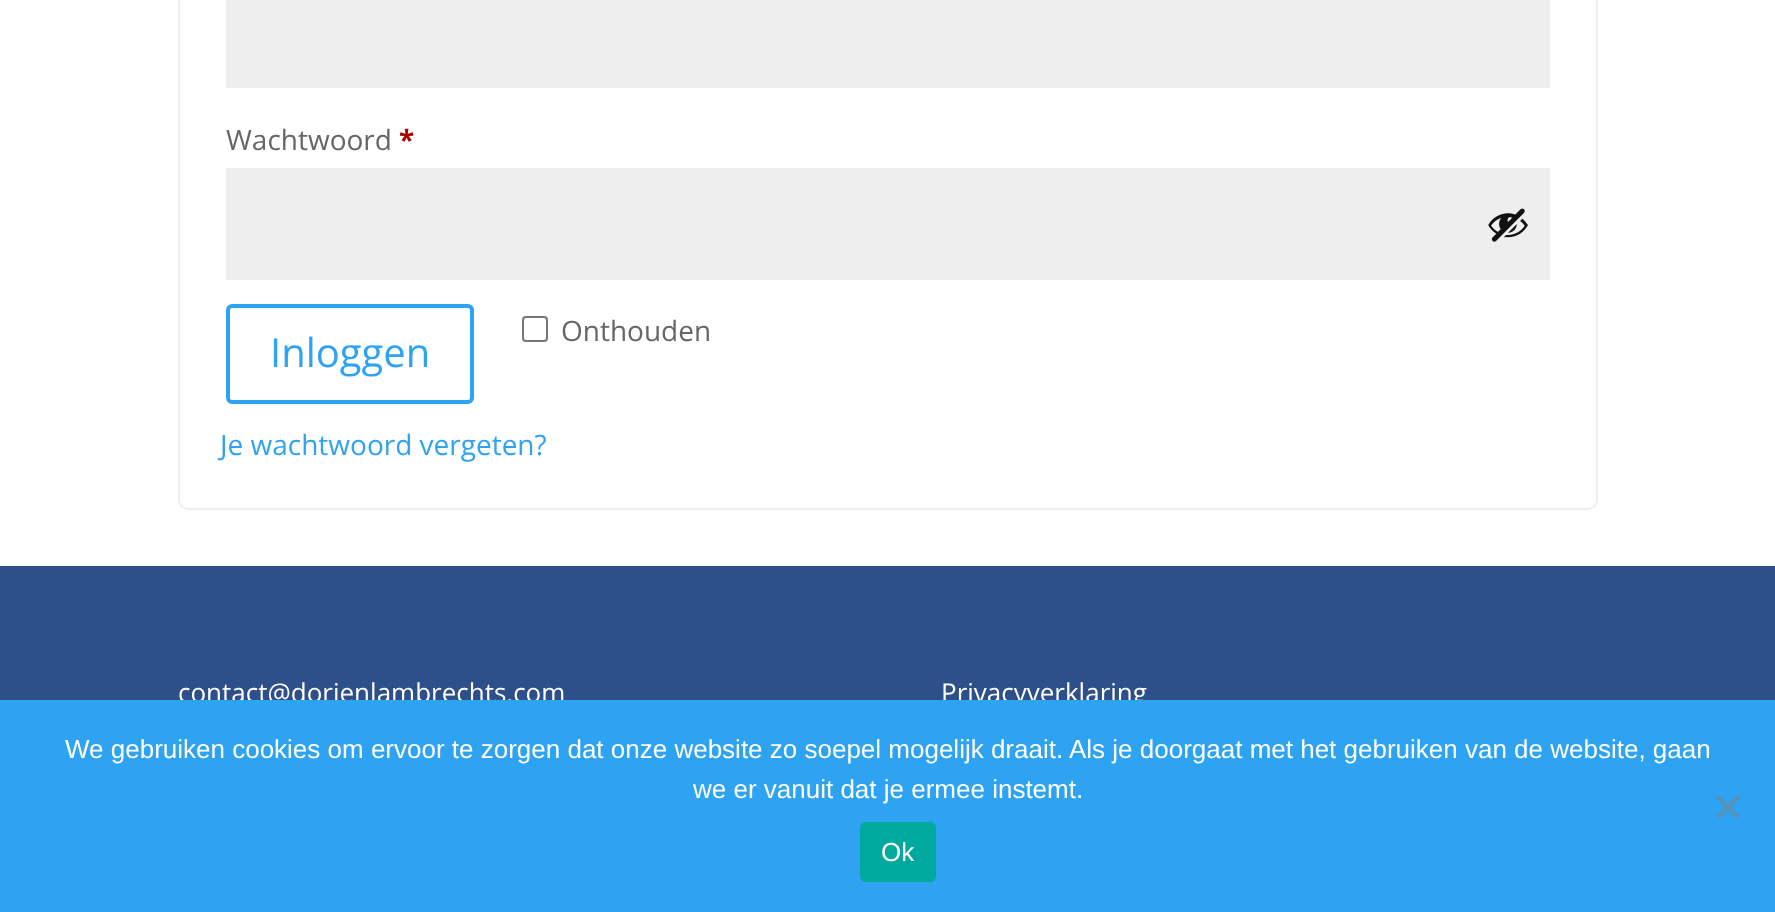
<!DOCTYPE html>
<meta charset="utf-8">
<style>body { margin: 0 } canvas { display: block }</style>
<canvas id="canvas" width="1775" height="912"></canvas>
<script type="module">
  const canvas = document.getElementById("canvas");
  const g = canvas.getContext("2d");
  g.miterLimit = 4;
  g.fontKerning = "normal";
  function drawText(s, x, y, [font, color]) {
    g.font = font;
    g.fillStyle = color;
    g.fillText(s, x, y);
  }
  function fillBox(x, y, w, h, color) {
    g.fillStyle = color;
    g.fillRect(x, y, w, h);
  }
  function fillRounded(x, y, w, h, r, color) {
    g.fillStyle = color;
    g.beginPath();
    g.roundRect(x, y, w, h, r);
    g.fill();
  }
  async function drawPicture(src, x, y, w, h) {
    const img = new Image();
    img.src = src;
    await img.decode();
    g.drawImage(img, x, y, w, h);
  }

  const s1 = ["28px Open Sans", "#666666"];
  const s2 = ["bold 28px Open Sans", "#AA0000"];
  const s3 = ["40px Open Sans", "#2EA3F2"];
  const s4 = ["28px Open Sans", "#2EA3F2"];
  const s5 = ["26px Open Sans", "#FFFFFF"];
  const s6 = ["26px Liberation Sans", "#FFFFFF"];

  fillBox(0, 0, 1775, 912, "#FFFFFF");
  g.beginPath();
  g.roundRect(179, -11, 1418, 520, 9);
  g.strokeStyle = "#EEEEEE";
  g.lineWidth = 2;
  g.stroke();
  fillBox(226, 0, 1324, 88, "#EEEEEE");
  drawText("Wachtwoord", 226, 150, s1);
  drawText("*", 399, 150, s2);
  fillBox(226, 168, 1324, 112, "#EEEEEE");
  await drawPicture("pic1.png", 1488, 208, 40, 34);
  g.beginPath();
  g.roundRect(523, 317, 24, 24, 3);
  g.strokeStyle = "#767676";
  g.stroke();
  drawText("Onthouden", 561, 341, s1);
  g.beginPath();
  g.roundRect(228, 306, 244, 96, 4);
  g.strokeStyle = "#2EA3F2";
  g.lineWidth = 4;
  g.stroke();
  drawText("Inloggen", 270, 367, s3);
  drawText("Je wachtwoord vergeten?", 220, 455, s4);
  fillBox(0, 566, 1775, 134, "#2D4F8A");
  drawText("contact@dorienlambrechts.com", 178, 702, s5);
  drawText("Privacyverklaring", 941, 702, s5);
  fillBox(0, 700, 1775, 212, "#2EA3F2");
  drawText("We gebruiken cookies om ervoor te zorgen dat onze website zo soepel mogelijk draait. Als je doorgaat met het gebruiken van de website, gaan", 65, 758, s6);
  drawText("we er vanuit dat je ermee instemt.", 693, 798, s6);
  g.fillStyle = "#5792B9";
  g.beginPath();
  g.moveTo(1737, 795);
  g.lineTo(1740, 798);
  g.lineTo(1719, 819);
  g.lineTo(1716, 816);
  g.closePath();
  g.fill();
  g.beginPath();
  g.moveTo(1716, 798);
  g.lineTo(1719, 795);
  g.lineTo(1740, 816);
  g.lineTo(1737, 819);
  g.closePath();
  g.fill();
  fillRounded(860, 822, 76, 60, 6, "#00A99D");
  drawText("Ok", 881, 861, s6);
</script>
